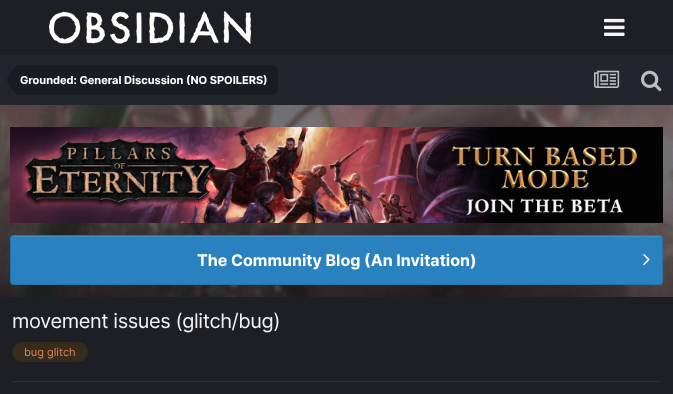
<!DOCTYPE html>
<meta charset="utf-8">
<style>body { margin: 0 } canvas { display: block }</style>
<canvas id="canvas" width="673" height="394"></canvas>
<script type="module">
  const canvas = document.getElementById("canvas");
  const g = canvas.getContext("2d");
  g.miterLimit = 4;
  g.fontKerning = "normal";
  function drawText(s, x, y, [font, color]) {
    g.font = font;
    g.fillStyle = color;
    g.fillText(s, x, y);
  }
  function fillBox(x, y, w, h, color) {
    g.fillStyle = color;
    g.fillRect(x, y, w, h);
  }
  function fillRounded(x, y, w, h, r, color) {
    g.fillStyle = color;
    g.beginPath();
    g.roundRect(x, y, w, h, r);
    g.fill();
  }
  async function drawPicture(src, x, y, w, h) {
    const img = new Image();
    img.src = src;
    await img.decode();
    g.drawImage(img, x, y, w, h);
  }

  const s1 = ["bold 11px Inter", "#FFFFFF"];
  const s2 = ["bold 16px Inter", "#FFFFFF"];
  const s3 = ["20px Inter", "#F2F2F2"];
  const s4 = ["11px Inter", "#E7815D"];

  fillBox(0, 0, 673, 394, "#FFFFFF");
  fillBox(0, 0, 673, 55, "#1D1F25");
  await drawPicture("pic1.png", 49, 11, 202, 33);
  await drawPicture("pic2.png", 604, 18, 21, 18);
  fillBox(0, 55, 673, 50, "#23252C");
  g.fillStyle = "#1A1C21";
  g.beginPath();
  g.roundRect(20, 65, 258, 30, [0, 5, 5, 0]);
  g.fill();
  g.beginPath();
  g.moveTo(20, 80);
  g.lineTo(20, 95);
  g.bezierCurveTo(15.5, 95, 13.5, 90.5, 11, 87);
  g.bezierCurveTo(9.5, 85, 7, 83, 7, 80);
  g.closePath();
  g.moveTo(20, 80);
  g.lineTo(7, 80);
  g.bezierCurveTo(7, 77, 9.5, 75, 11, 73);
  g.bezierCurveTo(13.5, 69.5, 15.5, 65, 20, 65);
  g.closePath();
  g.fill();
  drawText("Grounded: General Discussion (NO SPOILERS)", 20, 84, s1);
  await drawPicture("pic3.png", 594, 70, 26, 18);
  await drawPicture("pic4.png", 641, 70, 21, 22);
  await drawPicture("pic5.png", 0, 105, 673, 192);
  await drawPicture("pic6.png", 10, 127, 653, 96);
  fillRounded(10, 235, 653, 50, 4, "#2981BF");
  g.fillStyle = "#3E8EC5";
  g.beginPath();
  g.moveTo(14, 237);
  g.lineTo(659, 237);
  g.bezierCurveTo(661, 237, 662, 238, 662, 240);
  g.lineTo(662, 239);
  g.bezierCurveTo(662, 237, 661, 236, 659, 236);
  g.lineTo(14, 236);
  g.bezierCurveTo(12, 236, 11, 237, 11, 239);
  g.lineTo(11, 240);
  g.bezierCurveTo(11, 238, 12, 237, 14, 237);
  g.closePath();
  g.fill();
  g.beginPath();
  g.roundRect(10.5, 235.5, 652, 49, 3.5);
  g.strokeStyle = "rgba(0, 0, 0, 0.1)";
  g.stroke();
  drawText("The Community Blog (An Invitation)", 197, 266, s2);
  await drawPicture("pic7.png", 643, 254, 7, 12);
  fillBox(0, 297, 673, 97, "#1D1F25");
  g.letterSpacing = "-0.4px";
  drawText("movement issues (glitch/bug)", 12, 328, s3);
  fillRounded(12, 342, 76, 20, 10, "#352C1B");
  g.letterSpacing = "0px";
  drawText("bug glitch", 24, 356, s4);
  fillBox(12, 381, 649, 1, "#2E3035");
</script>
